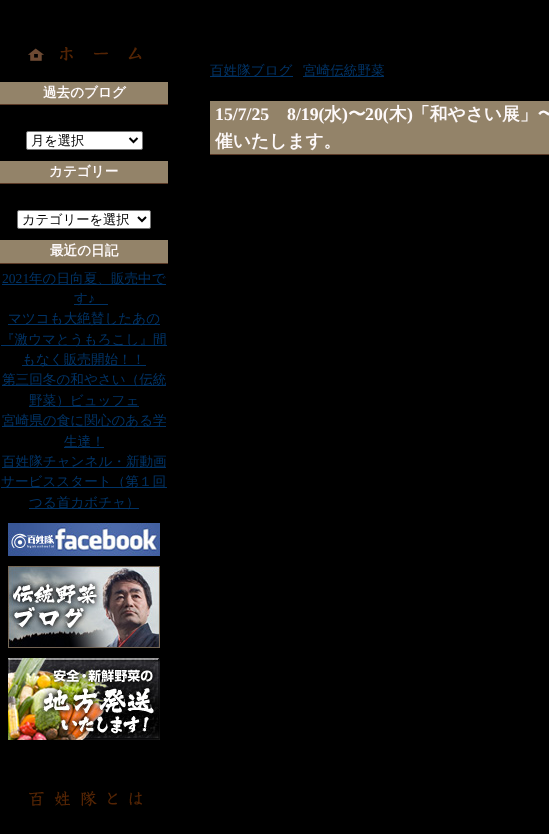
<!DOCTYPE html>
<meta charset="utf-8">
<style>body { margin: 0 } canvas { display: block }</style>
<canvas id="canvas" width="549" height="834"></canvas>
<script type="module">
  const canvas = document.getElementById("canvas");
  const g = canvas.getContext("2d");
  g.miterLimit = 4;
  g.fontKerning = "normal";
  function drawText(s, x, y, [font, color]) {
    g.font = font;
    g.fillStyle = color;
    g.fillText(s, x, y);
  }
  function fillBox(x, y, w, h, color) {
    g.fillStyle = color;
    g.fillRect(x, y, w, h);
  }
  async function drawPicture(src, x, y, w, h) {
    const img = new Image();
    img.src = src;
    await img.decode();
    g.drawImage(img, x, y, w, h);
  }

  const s1 = ["bold 13.6px WenQuanYi Zen Hei", "#FDF9FA"];
  const s2 = ["500 13.25px WenQuanYi Zen Hei", "#000000"];
  const s3 = ["13.6px Liberation Serif", "#003366"];
  const s4 = ["500 13.6px WenQuanYi Zen Hei", "#003366"];
  const s5 = ["bold 17.75px Liberation Serif", "#FDF9FA"];
  const s6 = ["bold 17.75px WenQuanYi Zen Hei", "#FDF9FA"];

  fillBox(0, 0, 549, 834, "#000000");
  await drawPicture("pic1.png", 28, 47, 114, 14);
  fillBox(0, 82, 168, 22, "#938369");
  fillBox(0, 104, 168, 1, "#5B3A27");
  drawText("過去のブログ", 43, 97, s1);
  g.fillStyle = "#FFFFFF";
  g.beginPath();
  g.roundRect(26.5, 131.5, 116, 18, 1.5);
  g.fill();
  g.strokeStyle = "#767676";
  g.stroke();
  g.beginPath();
  g.moveTo(129.5, 138);
  g.lineTo(133.5, 142);
  g.lineTo(137.5, 138);
  g.strokeStyle = "#000000";
  g.lineWidth = 2;
  g.stroke();
  drawText("月を選択", 31, 145, s2);
  fillBox(0, 161, 168, 22, "#938369");
  fillBox(0, 183, 168, 1, "#5B3A27");
  drawText("カテゴリー", 49, 176, s1);
  g.fillStyle = "#FFFFFF";
  g.beginPath();
  g.roundRect(17.5, 210.5, 133, 18, 1.5);
  g.fill();
  g.strokeStyle = "#767676";
  g.lineWidth = 1;
  g.stroke();
  g.beginPath();
  g.moveTo(138, 217);
  g.lineTo(142, 221);
  g.lineTo(146, 217);
  g.strokeStyle = "#000000";
  g.lineWidth = 2;
  g.stroke();
  drawText("カテゴリーを選択", 22, 224, s2);
  fillBox(0, 240, 168, 23, "#938369");
  fillBox(0, 263, 168, 1, "#5B3A27");
  drawText("最近の日記", 50, 255, s1);
  drawText("2021", 2, 283, s3);
  fillBox(2, 284, 164, 1, "#003366");
  drawText("年の日向夏、販売中で", 29, 283, s4);
  fillBox(74, 304, 34, 1, "#003366");
  drawText("す", 74, 303, s4);
  drawText("♪", 88, 303, s3);
  fillBox(8, 324, 152, 1, "#003366");
  drawText("マツコも大絶賛したあの", 8, 323, s4);
  fillBox(1, 345, 166, 1, "#003366");
  drawText("『激ウマとうもろこし』間", 1, 344, s4);
  fillBox(22, 365, 124, 1, "#003366");
  drawText("もなく販売開始！！", 22, 364, s4);
  fillBox(2, 385, 164, 1, "#003366");
  drawText("第三回冬の和やさい（伝統", 2, 384, s4);
  fillBox(29, 406, 110, 1, "#003366");
  drawText("野菜）ビュッフェ", 29, 405, s4);
  fillBox(2, 426, 164, 1, "#003366");
  drawText("宮崎県の食に関心のある学", 2, 425, s4);
  fillBox(64, 447, 40, 1, "#003366");
  drawText("生達！", 64, 446, s4);
  fillBox(2, 467, 164, 1, "#003366");
  drawText("百姓隊チャンネル・新動画", 2, 466, s4);
  fillBox(1, 487, 166, 1, "#003366");
  drawText("サービススタート（第１回", 1, 486, s4);
  fillBox(29, 508, 110, 1, "#003366");
  drawText("つる首カボチャ）", 29, 507, s4);
  await drawPicture("pic2.png", 8, 523, 152, 33);
  await drawPicture("pic3.png", 8, 566, 152, 82);
  await drawPicture("pic4.png", 8, 658, 152, 82);
  await drawPicture("pic5.png", 29, 791, 113, 16);
  fillBox(210, 76, 83, 1, "#003366");
  drawText("百姓隊ブログ", 210, 75, s4);
  fillBox(303, 76, 81, 1, "#003366");
  drawText("宮崎伝統野菜", 303, 75, s4);
  fillBox(210, 101, 339, 53, "#938369");
  fillBox(210, 154, 339, 1, "#5B3A27");
  drawText("15/7/25", 215, 120, s5);
  drawText("8/19(", 287, 120, s5);
  drawText("水", 324, 120, s6);
  drawText(")", 342, 120, s5);
  drawText("〜", 348, 120, s6);
  drawText("20(", 365, 120, s5);
  drawText("木", 389, 120, s6);
  drawText(")", 407, 120, s5);
  drawText("「和やさい展」〜", 412, 120, s6);
  drawText("催いたします。", 215, 147, s6);
</script>
